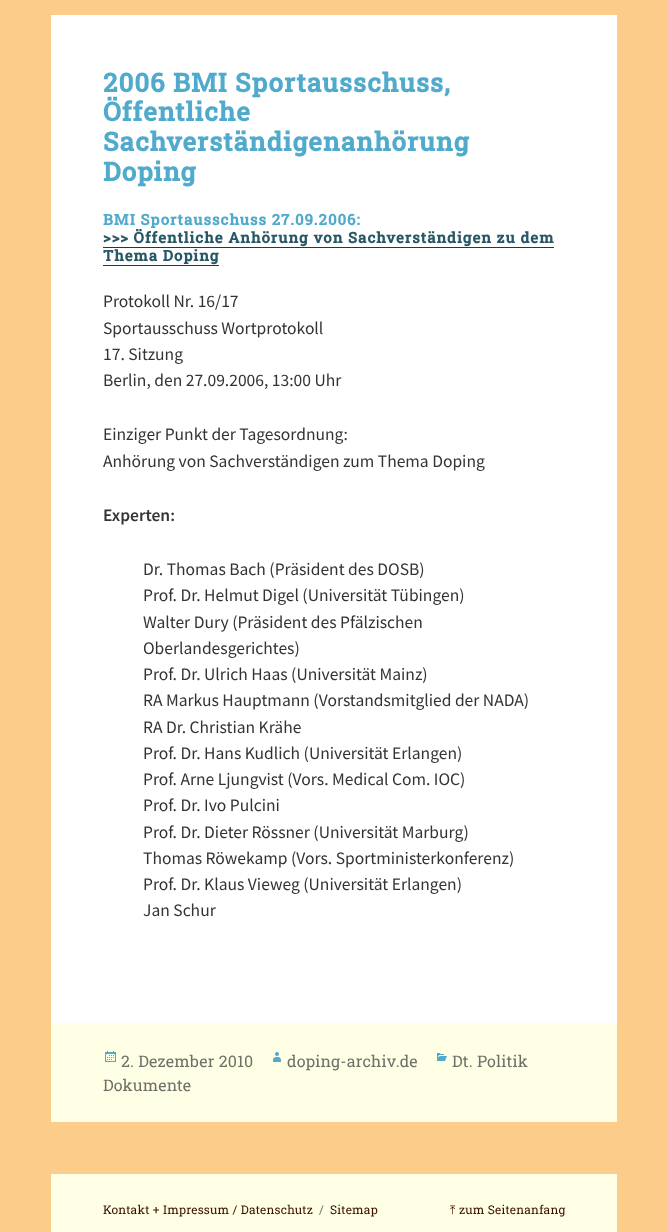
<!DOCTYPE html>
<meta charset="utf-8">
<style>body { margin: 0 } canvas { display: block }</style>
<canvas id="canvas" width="668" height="1232"></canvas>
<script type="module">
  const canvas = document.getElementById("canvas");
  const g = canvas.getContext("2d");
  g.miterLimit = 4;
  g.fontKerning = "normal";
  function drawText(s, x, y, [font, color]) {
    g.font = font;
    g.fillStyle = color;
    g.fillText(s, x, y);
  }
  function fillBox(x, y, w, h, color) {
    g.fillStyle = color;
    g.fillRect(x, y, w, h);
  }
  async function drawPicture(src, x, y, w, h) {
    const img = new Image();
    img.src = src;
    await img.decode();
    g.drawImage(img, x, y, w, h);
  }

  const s1 = ["bold 26px Roboto Slab", "#50AACB"];
  const s2 = ["bold 15px Roboto Slab", "#50AACB"];
  const s3 = ["bold 15px Roboto Slab", "#285766"];
  const s4 = ["17.5px Source Sans Pro", "#333333"];
  const s5 = ["600 17.5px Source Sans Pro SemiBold", "#333333"];
  const s6 = ["16px Roboto Slab", "#707069"];
  const s7 = ["12px Roboto Slab", "#3D0F00"];
  const s8 = ["12px Roboto Slab", "#707069"];
  const s9 = ["12px FreeSerif", "#3D0F00"];

  fillBox(0, 0, 668, 1232, "#FCCC8B");
  fillBox(51, 15, 566, 1008, "#FFFFFF");
  g.letterSpacing = "1px";
  drawText("2006 BMI Sportausschuss,", 103, 92, s1);
  drawText("Öffentliche", 103, 121, s1);
  drawText("Sachverständigenanhörung", 103, 151, s1);
  drawText("Doping", 103, 181, s1);
  drawText("BMI Sportausschuss 27.09.2006:", 103, 225, s2);
  drawText(">>> Öffentliche Anhörung von Sachverständigen zu dem", 103, 243, s3);
  fillBox(103, 247, 451, 1, "#333333");
  drawText("Thema Doping", 103, 261, s3);
  fillBox(103, 265, 116, 1, "#333333");
  g.letterSpacing = "0px";
  drawText("Protokoll Nr. 16/17", 103, 307, s4);
  drawText("Sportausschuss Wortprotokoll", 103, 334, s4);
  drawText("17. Sitzung", 103, 360, s4);
  drawText("Berlin, den 27.09.2006, 13:00 Uhr", 103, 386, s4);
  drawText("Einziger Punkt der Tagesordnung:", 103, 440, s4);
  drawText("Anhörung von Sachverständigen zum Thema Doping", 103, 467, s4);
  drawText("Experten:", 103, 521, s5);
  drawText("Dr. Thomas Bach (Präsident des DOSB)", 143, 575, s4);
  drawText("Prof. Dr. Helmut Digel (Universität Tübingen)", 143, 601, s4);
  drawText("Walter Dury (Präsident des Pfälzischen", 143, 628, s4);
  drawText("Oberlandesgerichtes)", 143, 654, s4);
  drawText("Prof. Dr. Ulrich Haas (Universität Mainz)", 143, 680, s4);
  drawText("RA Markus Hauptmann (Vorstandsmitglied der NADA)", 143, 706, s4);
  drawText("RA Dr. Christian Krähe", 143, 733, s4);
  drawText("Prof. Dr. Hans Kudlich (Universität Erlangen)", 143, 759, s4);
  drawText("Prof. Arne Ljungvist (Vors. Medical Com. IOC)", 143, 785, s4);
  drawText("Prof. Dr. Ivo Pulcini", 143, 811, s4);
  drawText("Prof. Dr. Dieter Rössner (Universität Marburg)", 143, 838, s4);
  drawText("Thomas Röwekamp (Vors. Sportministerkonferenz)", 143, 864, s4);
  drawText("Prof. Dr. Klaus Vieweg (Universität Erlangen)", 143, 890, s4);
  drawText("Jan Schur", 143, 916, s4);
  fillBox(51, 1023, 566, 99, "#FFFFE6");
  await drawPicture("pic1.png", 437, 1053, 10, 8);
  g.letterSpacing = "0.2px";
  drawText("Dt. Politik", 452, 1067, s6);
  drawText("Dokumente", 103, 1091, s6);
  await drawPicture("pic2.png", 105, 1051, 11, 11);
  drawText("2. Dezember 2010", 121, 1067, s6);
  await drawPicture("pic3.png", 273, 1052, 8, 10);
  drawText("doping-archiv.de", 287, 1067, s6);
  fillBox(51, 1174, 566, 58, "#FFFFE6");
  drawText("Kontakt + Impressum / Datenschutz", 103, 1214, s7);
  drawText("/", 319, 1214, s8);
  drawText("Sitemap", 330, 1214, s7);
  drawText("⤒", 450, 1214, s9);
  drawText("zum Seitenanfang", 459, 1214, s7);
</script>
